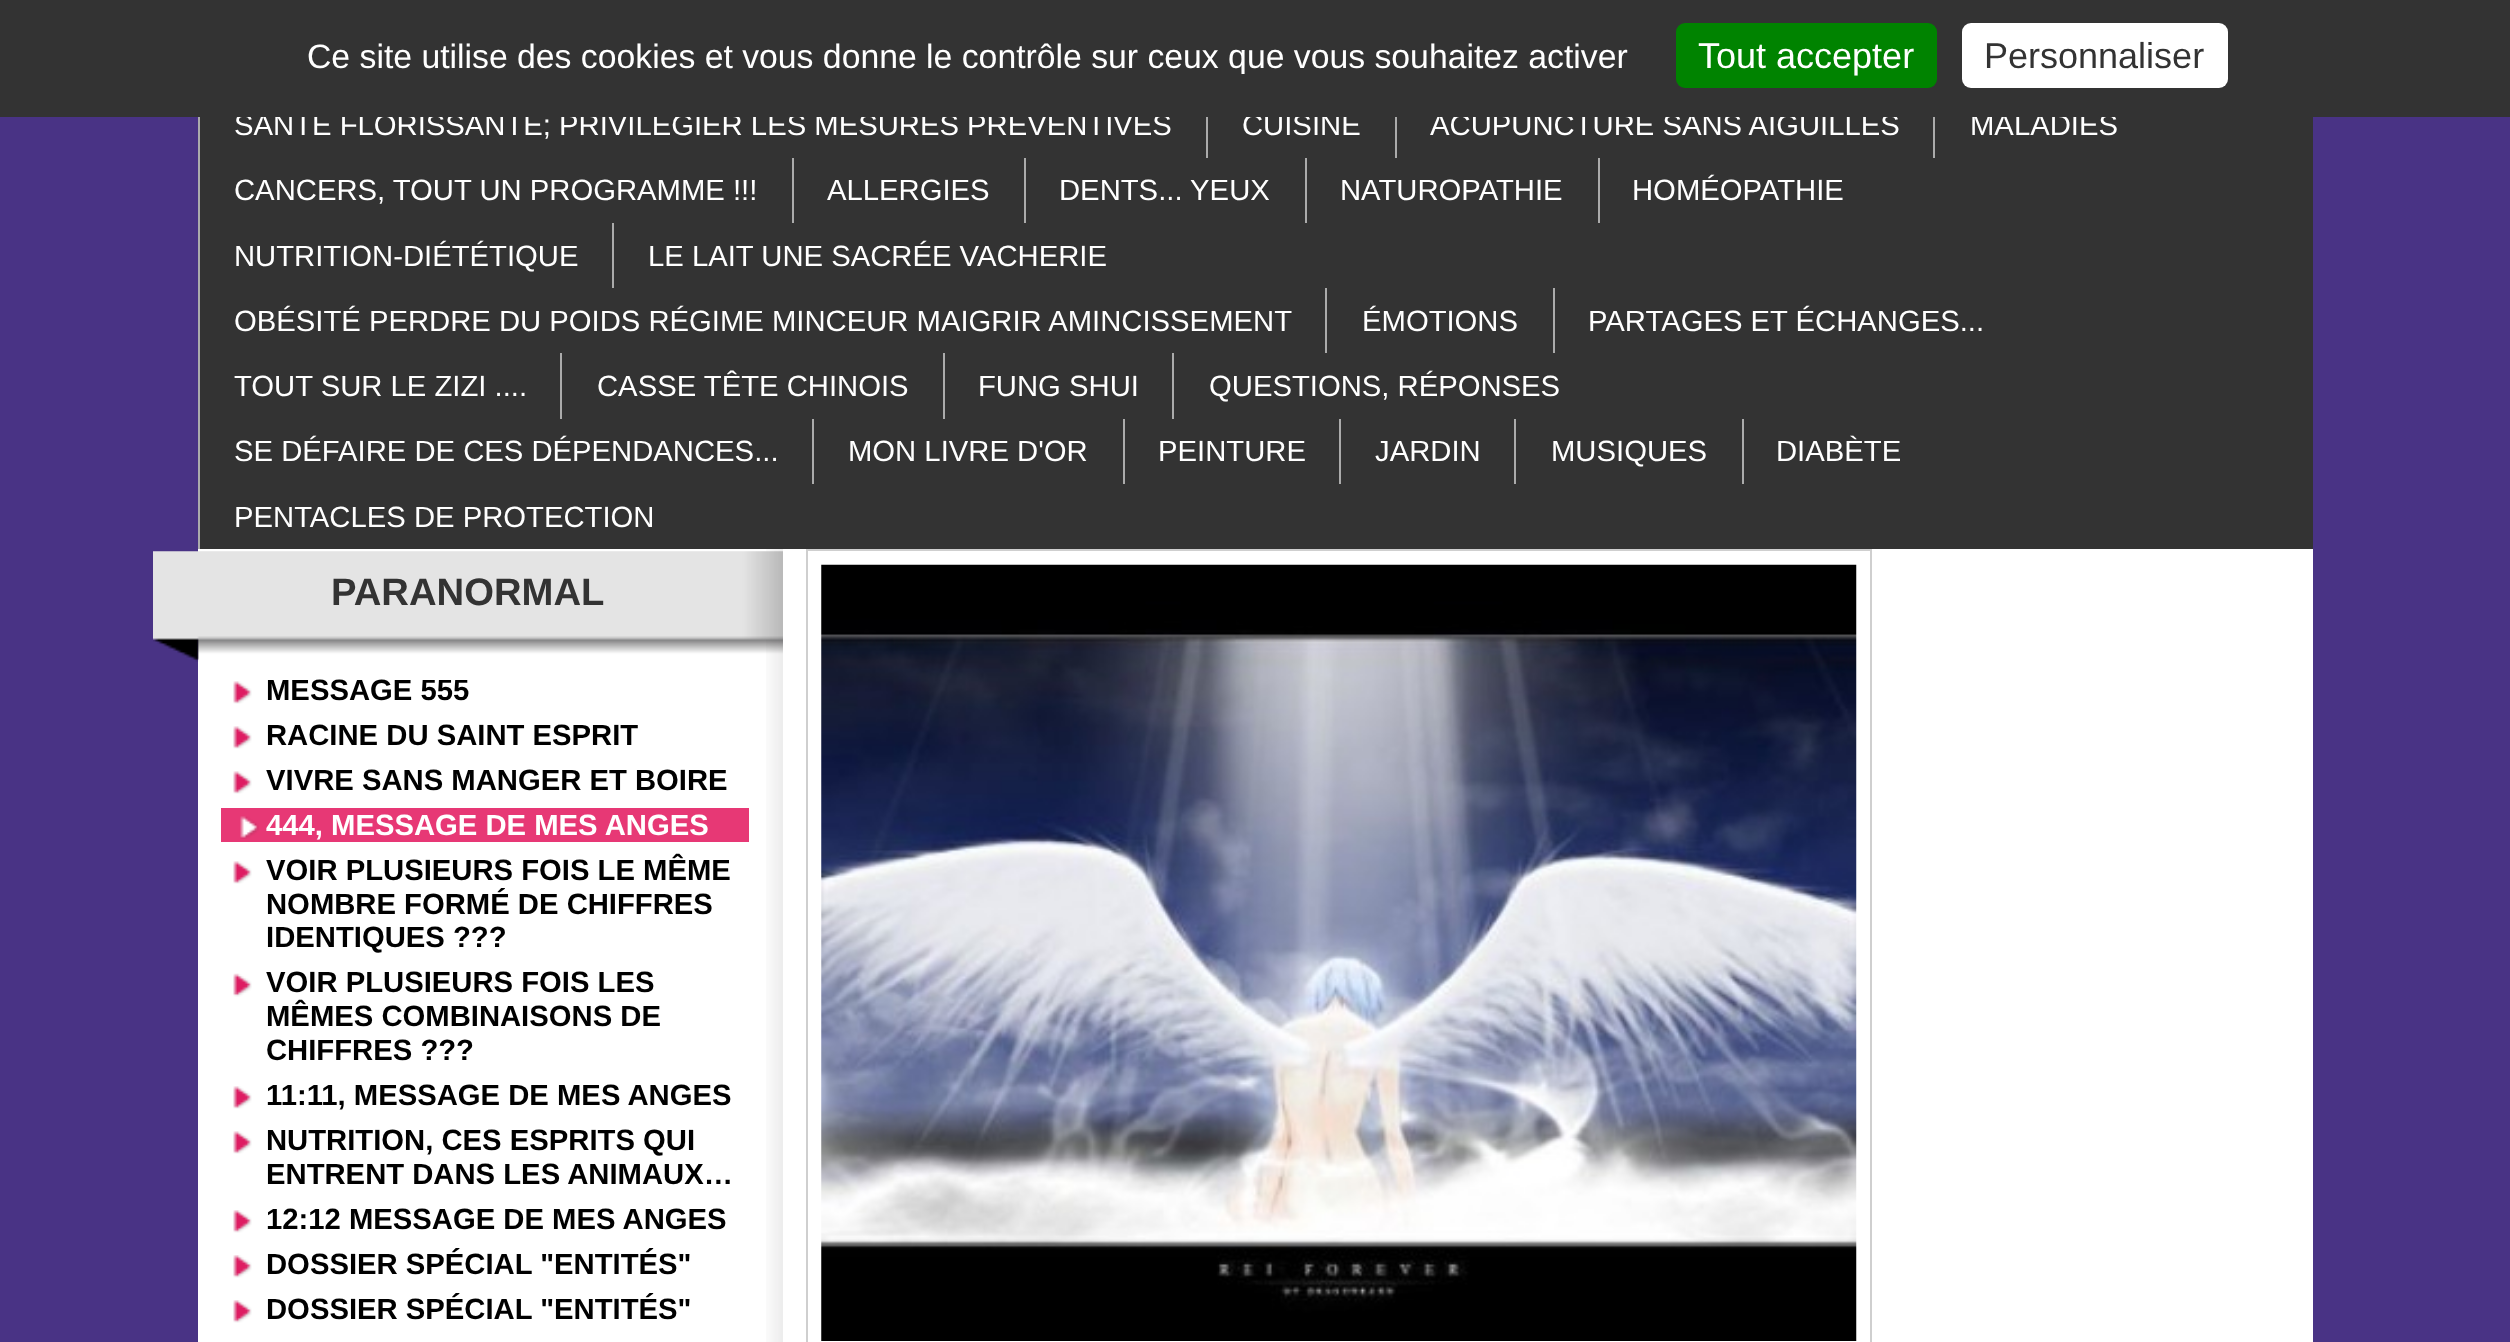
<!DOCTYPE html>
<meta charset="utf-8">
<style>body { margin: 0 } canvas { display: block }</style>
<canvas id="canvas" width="2510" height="1342"></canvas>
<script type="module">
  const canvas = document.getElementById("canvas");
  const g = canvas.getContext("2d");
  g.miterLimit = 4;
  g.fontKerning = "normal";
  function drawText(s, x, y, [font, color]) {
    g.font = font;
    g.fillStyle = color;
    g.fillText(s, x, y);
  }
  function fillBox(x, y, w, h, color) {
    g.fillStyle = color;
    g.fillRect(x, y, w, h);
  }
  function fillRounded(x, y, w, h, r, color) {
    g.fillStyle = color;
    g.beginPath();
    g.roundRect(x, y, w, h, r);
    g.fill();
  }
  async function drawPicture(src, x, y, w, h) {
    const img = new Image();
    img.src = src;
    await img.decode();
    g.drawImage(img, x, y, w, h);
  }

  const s1 = ["29.25px Liberation Sans", "#FFFFFF"];
  const s2 = ["33.75px Liberation Sans", "#FFFFFF"];
  const s3 = ["36px Liberation Sans", "#FFFFFF"];
  const s4 = ["36px Liberation Sans", "#333333"];
  const s5 = ["bold 38.25px Liberation Sans", "#333333"];
  const s6 = ["bold 29.25px Liberation Sans", "#000000"];
  const s7 = ["bold 29.25px Liberation Sans", "#FFFFFF"];

  fillBox(0, 0, 2510, 1342, "#493385");
  fillBox(200, 117, 2113, 432, "#333333");
  drawText("SANTÉ FLORISSANTE; PRIVILÉGIER LES MESURES PRÉVENTIVES", 234, 135, s1);
  drawText("CUISINE", 1242, 135, s1);
  drawText("ACUPUNCTURE SANS AIGUILLES", 1430, 135, s1);
  drawText("MALADIES", 1970, 135, s1);
  fillBox(0, 0, 2510, 117, "#333333");
  g.save();
  g.beginPath();
  g.rect(284, 36, 1365, 38);
  g.clip();
  drawText("Ce site utilise des cookies et vous donne le contrôle sur ceux que vous souhaitez activer", 307, 68, s2);
  g.restore();
  fillRounded(1676, 23, 261, 65, 9, "#008300");
  drawText("Tout accepter", 1698, 68, s3);
  fillRounded(1962, 23, 266, 65, 9, "#FFFFFF");
  drawText("Personnaliser", 1984, 68, s4);
  fillBox(198, 549, 568, 793, "#FFFFFF");
  await drawPicture("pic1.png", 766, 549, 17, 793);
  fillBox(198, 117, 2, 432, "#ABABAB");
  fillBox(1206, 117, 2, 41, "#ABABAB");
  fillBox(1395, 117, 2, 41, "#ABABAB");
  fillBox(1933, 117, 2, 41, "#ABABAB");
  drawText("CANCERS, TOUT UN PROGRAMME !!!", 234, 200, s1);
  fillBox(792, 158, 2, 65, "#ABABAB");
  drawText("ALLERGIES", 827, 200, s1);
  fillBox(1024, 158, 2, 65, "#ABABAB");
  drawText("DENTS... YEUX", 1059, 200, s1);
  fillBox(1305, 158, 2, 65, "#ABABAB");
  drawText("NATUROPATHIE", 1340, 200, s1);
  fillBox(1598, 158, 2, 65, "#ABABAB");
  drawText("HOMÉOPATHIE", 1632, 200, s1);
  drawText("NUTRITION-DIÉTÉTIQUE", 234, 266, s1);
  fillBox(612, 223, 2, 65, "#ABABAB");
  drawText("LE LAIT UNE SACRÉE VACHERIE", 648, 266, s1);
  drawText("OBÉSITÉ PERDRE DU POIDS RÉGIME MINCEUR MAIGRIR AMINCISSEMENT", 234, 331, s1);
  fillBox(1325, 288, 2, 65, "#ABABAB");
  drawText("ÉMOTIONS", 1362, 331, s1);
  fillBox(1553, 288, 2, 65, "#ABABAB");
  drawText("PARTAGES ET ÉCHANGES...", 1588, 331, s1);
  drawText("TOUT SUR LE ZIZI ....", 234, 396, s1);
  fillBox(560, 353, 2, 66, "#ABABAB");
  drawText("CASSE TÊTE CHINOIS", 597, 396, s1);
  fillBox(943, 353, 2, 66, "#ABABAB");
  drawText("FUNG SHUI", 978, 396, s1);
  fillBox(1172, 353, 2, 66, "#ABABAB");
  drawText("QUESTIONS, RÉPONSES", 1209, 396, s1);
  drawText("SE DÉFAIRE DE CES DÉPENDANCES...", 234, 461, s1);
  fillBox(812, 419, 2, 65, "#ABABAB");
  drawText("MON LIVRE D'OR", 848, 461, s1);
  fillBox(1123, 419, 2, 65, "#ABABAB");
  drawText("PEINTURE", 1158, 461, s1);
  fillBox(1339, 419, 2, 65, "#ABABAB");
  drawText("JARDIN", 1375, 461, s1);
  fillBox(1514, 419, 2, 65, "#ABABAB");
  drawText("MUSIQUES", 1551, 461, s1);
  fillBox(1742, 419, 2, 65, "#ABABAB");
  drawText("DIABÈTE", 1776, 461, s1);
  drawText("PENTACLES DE PROTECTION", 234, 527, s1);
  await drawPicture("pic2.png", 153, 551, 630, 111);
  drawText("PARANORMAL", 331, 605, s5);
  await drawPicture("pic3.png", 233, 681, 19, 23);
  drawText("MESSAGE 555", 266, 700, s6);
  await drawPicture("pic3.png", 233, 726, 19, 23);
  drawText("RACINE DU SAINT ESPRIT", 266, 745, s6);
  await drawPicture("pic3.png", 233, 771, 19, 23);
  drawText("VIVRE SANS MANGER ET BOIRE", 266, 790, s6);
  fillBox(221, 808, 528, 34, "#E73875");
  await drawPicture("pic4.png", 240, 816, 19, 23);
  drawText("444, MESSAGE DE MES ANGES", 266, 835, s7);
  await drawPicture("pic3.png", 233, 861, 19, 23);
  drawText("VOIR PLUSIEURS FOIS LE MÊME", 266, 880, s6);
  drawText("NOMBRE FORMÉ DE CHIFFRES", 266, 914, s6);
  drawText("IDENTIQUES ???", 266, 947, s6);
  await drawPicture("pic5.png", 233, 973, 19, 24);
  drawText("VOIR PLUSIEURS FOIS LES", 266, 992, s6);
  drawText("MÊMES COMBINAISONS DE", 266, 1026, s6);
  drawText("CHIFFRES ???", 266, 1060, s6);
  await drawPicture("pic3.png", 233, 1086, 19, 23);
  drawText("11:11, MESSAGE DE MES ANGES", 266, 1105, s6);
  await drawPicture("pic3.png", 233, 1131, 19, 23);
  drawText("NUTRITION, CES ESPRITS QUI", 266, 1150, s6);
  drawText("ENTRENT DANS LES ANIMAUX…", 266, 1184, s6);
  await drawPicture("pic6.png", 233, 1210, 19, 23);
  drawText("12:12 MESSAGE DE MES ANGES", 266, 1229, s6);
  await drawPicture("pic6.png", 233, 1255, 19, 23);
  drawText("DOSSIER SPÉCIAL \"ENTITÉS\"", 266, 1274, s6);
  await drawPicture("pic6.png", 233, 1300, 19, 23);
  drawText("DOSSIER SPÉCIAL \"ENTITÉS\"", 266, 1319, s6);
  fillBox(783, 549, 1530, 793, "#FFFFFF");
  g.strokeStyle = "#CFCFCF";
  g.lineWidth = 2;
  g.strokeRect(807, 550, 1064, 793);
  await drawPicture("pic7.png", 821, 564, 1036, 777);
</script>
